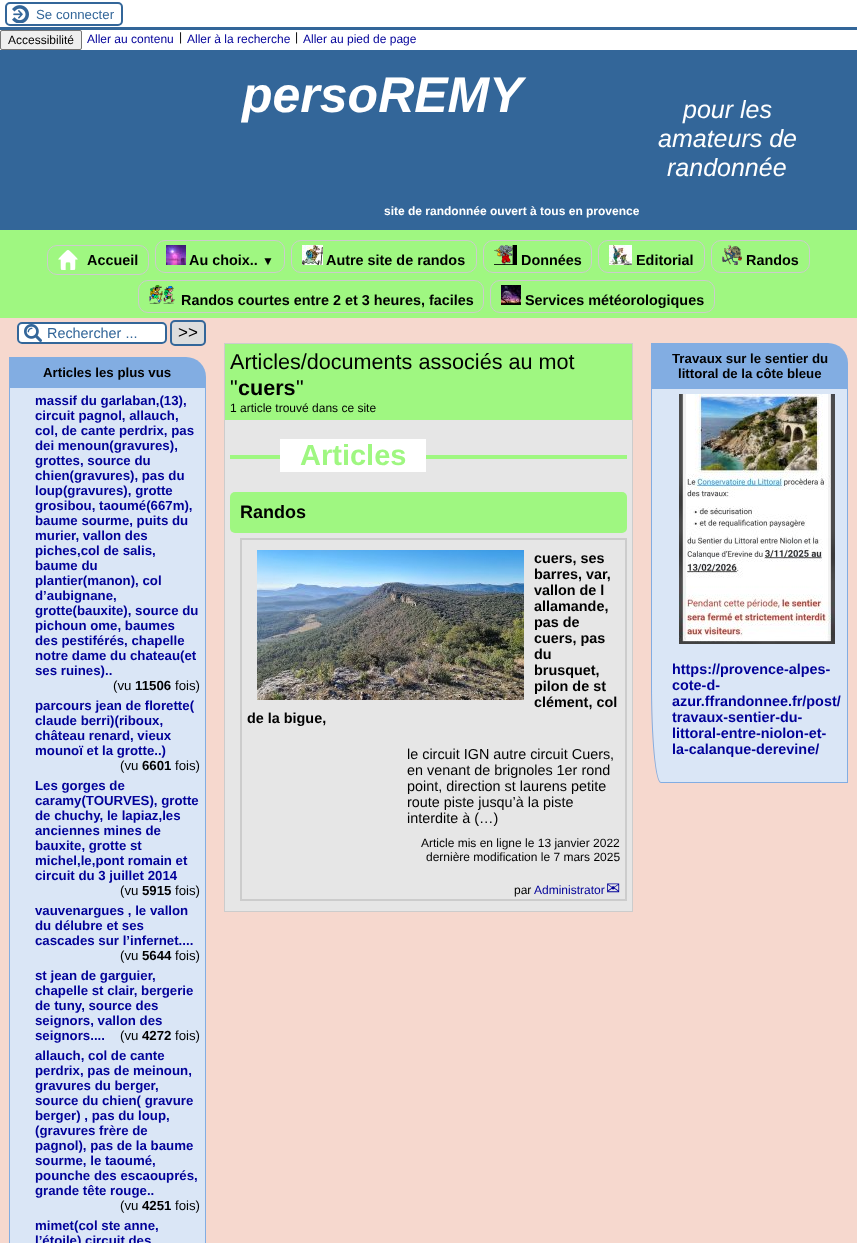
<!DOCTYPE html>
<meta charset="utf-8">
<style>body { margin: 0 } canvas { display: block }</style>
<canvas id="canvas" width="857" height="1243"></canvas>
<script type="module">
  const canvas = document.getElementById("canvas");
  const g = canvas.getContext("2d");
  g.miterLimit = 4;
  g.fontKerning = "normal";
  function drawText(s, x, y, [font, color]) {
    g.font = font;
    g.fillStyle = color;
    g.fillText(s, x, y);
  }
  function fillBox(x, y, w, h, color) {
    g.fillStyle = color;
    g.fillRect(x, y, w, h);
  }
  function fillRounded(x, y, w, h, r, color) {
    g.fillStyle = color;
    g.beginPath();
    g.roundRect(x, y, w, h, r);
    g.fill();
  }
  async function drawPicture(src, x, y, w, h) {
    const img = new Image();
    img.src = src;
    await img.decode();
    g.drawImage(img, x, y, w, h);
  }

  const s1 = ["13.25px Liberation Sans", "#336699"];
  const s2 = ["12px Liberation Sans", "#000000"];
  const s3 = ["12px Liberation Sans", "#000099"];
  const s4 = ["italic bold 50px Liberation Sans", "#FFFFFF"];
  const s5 = ["italic 25px Liberation Sans", "#FFFFFF"];
  const s6 = ["bold 12px Liberation Sans", "#FFFFFF"];
  const s7 = ["bold 14.4px Liberation Sans", "#000000"];
  const s8 = ["bold 12px Liberation Sans", "#000000"];
  const s9 = ["14.4px Liberation Sans", "#336699"];
  const s10 = ["17px Liberation Sans", "#000000"];
  const s11 = ["bold 13.25px Liberation Sans", "#000000"];
  const s12 = ["bold 13.25px Liberation Sans", "#000099"];
  const s13 = ["13.25px Liberation Sans", "#000000"];
  const s14 = ["21.6px Liberation Sans", "#000000"];
  const s15 = ["bold 21.6px Liberation Sans", "#000000"];
  const s16 = ["bold 29px Liberation Sans", "#9FF781"];
  const s17 = ["bold 18px Liberation Sans", "#000000"];
  const s18 = ["14.4px Liberation Sans", "#000000"];
  const s19 = ["17px DejaVu Sans", "#000099"];
  const s20 = ["bold 14.4px Liberation Sans", "#000099"];

  fillBox(0, 0, 857, 1243, "#F6D8CE");
  fillBox(0, 0, 857, 27, "#FFFFFF");
  await drawPicture("pic1.png", 12, 5, 17, 18);
  g.beginPath();
  g.roundRect(6, 3, 116, 22, 4);
  g.strokeStyle = "#336699";
  g.lineWidth = 2;
  g.stroke();
  drawText("Se connecter", 36, 19, s1);
  fillBox(0, 27, 857, 203, "#336699");
  fillBox(0, 30, 857, 20, "#FFFFFF");
  g.fillStyle = "#EFEFEF";
  g.beginPath();
  g.roundRect(0.5, 30.5, 81, 19, 1.5);
  g.fill();
  g.strokeStyle = "#767676";
  g.lineWidth = 1;
  g.stroke();
  drawText("Accessibilité", 8, 44, s2);
  drawText("Aller au contenu", 87, 43, s3);
  drawText("|", 179, 41, s2);
  drawText("Aller à la recherche", 187, 43, s3);
  drawText("|", 295, 41, s2);
  drawText("Aller au pied de page", 303, 43, s3);
  drawText("persoREMY", 242, 112, s4);
  drawText("pour les", 683, 118, s5);
  drawText("amateurs de", 658, 147, s5);
  drawText("randonnée", 667, 176, s5);
  drawText("site de randonnée ouvert à tous en provence", 384, 215, s6);
  fillBox(0, 230, 857, 88, "#9FF781");
  g.beginPath();
  g.roundRect(47.5, 245.5, 101, 29, 9.5);
  g.strokeStyle = "#CCCCCC";
  g.stroke();
  await drawPicture("pic2.png", 58, 250, 20, 20);
  drawText("Accueil", 87, 265, s7);
  g.beginPath();
  g.roundRect(155.5, 240.5, 129, 32, 9.5);
  g.stroke();
  await drawPicture("pic3.png", 166, 245, 20, 20);
  drawText("Au choix..", 189, 265, s7);
  drawText("▼", 262, 265, s8);
  g.beginPath();
  g.roundRect(291.5, 240.5, 185, 32, 9.5);
  g.stroke();
  await drawPicture("pic4.png", 302, 245, 21, 20);
  drawText("Autre site de randos", 326, 265, s7);
  g.beginPath();
  g.roundRect(483.5, 240.5, 108, 32, 9.5);
  g.stroke();
  await drawPicture("pic5.png", 494, 245, 23, 20);
  drawText("Données", 521, 265, s7);
  g.beginPath();
  g.roundRect(598.5, 240.5, 106, 32, 9.5);
  g.stroke();
  await drawPicture("pic6.png", 609, 245, 23, 20);
  drawText("Editorial", 636, 265, s7);
  g.beginPath();
  g.roundRect(711.5, 240.5, 98, 32, 9.5);
  g.stroke();
  await drawPicture("pic7.png", 722, 245, 20, 20);
  drawText("Randos", 746, 265, s7);
  g.beginPath();
  g.roundRect(138.5, 280.5, 345, 32, 9.5);
  g.stroke();
  await drawPicture("pic8.png", 149, 285, 26, 19);
  drawText("Randos courtes entre 2 et 3 heures, faciles", 181, 305, s7);
  g.beginPath();
  g.roundRect(490.5, 280.5, 224, 32, 9.5);
  g.stroke();
  await drawPicture("pic9.png", 501, 285, 20, 20);
  drawText("Services météorologiques", 525, 305, s7);
  fillRounded(17, 322, 150, 22, 5, "#FFFFFF");
  await drawPicture("pic10.png", 24, 324, 18, 18);
  g.beginPath();
  g.roundRect(18, 323, 148, 20, 4);
  g.strokeStyle = "#336699";
  g.lineWidth = 2;
  g.stroke();
  drawText("Rechercher ...", 47, 338, s9);
  g.fillStyle = "#DDDDDD";
  g.beginPath();
  g.roundRect(171, 321, 34, 24, 4);
  g.fill();
  g.stroke();
  drawText(">>", 178, 338, s10);
  g.fillStyle = "#82ADE2";
  g.beginPath();
  g.roundRect(9, 357, 197, 31, [0, 20, 0, 0]);
  g.fill();
  drawText("Articles les plus vus", 43, 377, s11);
  g.fillStyle = "#DAE6F6";
  g.beginPath();
  g.moveTo(10, 388);
  g.lineTo(205, 388);
  g.lineTo(205, 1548);
  g.lineTo(19, 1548);
  g.bezierCurveTo(14, 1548, 10, 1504, 10, 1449);
  g.closePath();
  g.fill();
  g.fillStyle = "#82ADE2";
  g.beginPath();
  g.moveTo(9, 388);
  g.lineTo(206, 388);
  g.lineTo(206, 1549);
  g.lineTo(19, 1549);
  g.bezierCurveTo(13, 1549, 9, 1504, 9, 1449);
  g.closePath();
  g.moveTo(10, 388);
  g.lineTo(205, 388);
  g.lineTo(205, 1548);
  g.lineTo(19, 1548);
  g.bezierCurveTo(14, 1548, 10, 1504, 10, 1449);
  g.closePath();
  g.fill("evenodd");
  drawText("massif du garlaban,(13),", 35, 405, s12);
  drawText("circuit pagnol, allauch,", 35, 420, s12);
  drawText("col, de cante perdrix, pas", 35, 435, s12);
  drawText("dei menoun(gravures),", 35, 450, s12);
  drawText("grottes, source du", 35, 465, s12);
  drawText("chien(gravures), pas du", 35, 480, s12);
  drawText("loup(gravures), grotte", 35, 495, s12);
  drawText("grosibou, taoumé(667m),", 35, 510, s12);
  drawText("baume sourme, puits du", 35, 525, s12);
  drawText("murier, vallon des", 35, 540, s12);
  drawText("piches,col de salis,", 35, 555, s12);
  drawText("baume du", 35, 570, s12);
  drawText("plantier(manon), col", 35, 585, s12);
  drawText("d’aubignane,", 35, 600, s12);
  drawText("grotte(bauxite), source du", 35, 615, s12);
  drawText("pichoun ome, baumes", 35, 630, s12);
  drawText("des pestiférés, chapelle", 35, 645, s12);
  drawText("notre dame du chateau(et", 35, 660, s12);
  drawText("ses ruines)..", 35, 675, s12);
  drawText("(vu", 113, 690, s13);
  drawText("11506", 135, 690, s11);
  drawText("fois)", 175, 690, s13);
  drawText("parcours jean de florette(", 35, 710, s12);
  drawText("claude berri)(riboux,", 35, 725, s12);
  drawText("château renard, vieux", 35, 740, s12);
  drawText("mounoï et la grotte..)", 35, 755, s12);
  drawText("(vu", 120, 770, s13);
  drawText("6601", 142, 770, s11);
  drawText("fois)", 175, 770, s13);
  drawText("Les gorges de", 35, 790, s12);
  drawText("caramy(TOURVES), grotte", 35, 805, s12);
  drawText("de chuchy, le lapiaz,les", 35, 820, s12);
  drawText("anciennes mines de", 35, 835, s12);
  drawText("bauxite, grotte st", 35, 850, s12);
  drawText("michel,le,pont romain et", 35, 865, s12);
  drawText("circuit du 3 juillet 2014", 35, 880, s12);
  drawText("(vu", 120, 895, s13);
  drawText("5915", 142, 895, s11);
  drawText("fois)", 175, 895, s13);
  drawText("vauvenargues , le vallon", 35, 915, s12);
  drawText("du délubre et ses", 35, 930, s12);
  drawText("cascades sur l’infernet....", 35, 945, s12);
  drawText("(vu", 120, 960, s13);
  drawText("5644", 142, 960, s11);
  drawText("fois)", 175, 960, s13);
  drawText("st jean de garguier,", 35, 980, s12);
  drawText("chapelle st clair, bergerie", 35, 995, s12);
  drawText("de tuny, source des", 35, 1010, s12);
  drawText("seignors, vallon des", 35, 1025, s12);
  drawText("seignors....", 35, 1040, s12);
  drawText("(vu", 120, 1040, s13);
  drawText("4272", 142, 1040, s11);
  drawText("fois)", 175, 1040, s13);
  drawText("allauch, col de cante", 35, 1060, s12);
  drawText("perdrix, pas de meinoun,", 35, 1075, s12);
  drawText("gravures du berger,", 35, 1090, s12);
  drawText("source du chien( gravure", 35, 1105, s12);
  drawText("berger) , pas du loup,", 35, 1120, s12);
  drawText("(gravures frère de", 35, 1135, s12);
  drawText("pagnol), pas de la baume", 35, 1150, s12);
  drawText("sourme, le taoumé,", 35, 1165, s12);
  drawText("pounche des escaouprés,", 35, 1180, s12);
  drawText("grande tête rouge..", 35, 1195, s12);
  drawText("(vu", 120, 1210, s13);
  drawText("4251", 142, 1210, s11);
  drawText("fois)", 175, 1210, s13);
  drawText("mimet(col ste anne,", 35, 1230, s12);
  drawText("l’étoile),circuit des", 35, 1245, s12);
  fillBox(225, 420, 407, 491, "#E6E6E6");
  g.strokeStyle = "#CCCCCC";
  g.lineWidth = 1;
  g.strokeRect(224.5, 343.5, 408, 568);
  fillBox(225, 344, 407, 76, "#9FF781");
  drawText("Articles/documents associés au mot", 230, 369, s14);
  drawText("\"", 230, 395, s14);
  drawText("\"", 296, 395, s14);
  drawText("cuers", 238, 395, s15);
  drawText("1 article trouvé dans ce site", 230, 412, s2);
  fillBox(230, 455, 397, 4, "#9FF781");
  fillBox(280, 439, 146, 33, "#FFFFFF");
  drawText("Articles", 300, 465, s16);
  fillRounded(230, 492, 397, 41, 5, "#9FF781");
  drawText("Randos", 240, 518, s17);
  g.lineWidth = 2;
  g.strokeRect(241, 539, 385, 361);
  await drawPicture("pic11.png", 257, 550, 267, 150);
  drawText("cuers, ses", 534, 563, s7);
  drawText("barres, var,", 534, 579, s7);
  drawText("vallon de l", 534, 595, s7);
  drawText("allamande,", 534, 611, s7);
  drawText("pas de", 534, 627, s7);
  drawText("cuers, pas", 534, 643, s7);
  drawText("du", 534, 659, s7);
  drawText("brusquet,", 534, 675, s7);
  drawText("pilon de st", 534, 691, s7);
  drawText("clément, col", 534, 707, s7);
  drawText("de la bigue,", 247, 723, s7);
  drawText("le circuit IGN autre circuit Cuers,", 407, 759, s18);
  drawText("en venant de brignoles 1er rond", 407, 775, s18);
  drawText("point, direction st laurens petite", 407, 791, s18);
  drawText("route piste jusqu’à la piste", 407, 807, s18);
  drawText("interdite à (…)", 407, 823, s18);
  drawText("Article mis en ligne le 13 janvier 2022", 421, 847, s2);
  drawText("dernière modification le 7 mars 2025", 426, 861, s2);
  drawText("par", 514, 894, s2);
  drawText("Administrator", 534, 894, s3);
  drawText("✉", 606, 894, s19);
  g.fillStyle = "#82ADE2";
  g.beginPath();
  g.roundRect(651, 343, 197, 46, [0, 20, 0, 0]);
  g.fill();
  drawText("Travaux sur le sentier du", 672, 363, s11);
  drawText("littoral de la côte bleue", 678, 378, s11);
  g.fillStyle = "#DAE6F6";
  g.beginPath();
  g.moveTo(652, 389);
  g.lineTo(847, 389);
  g.lineTo(847, 782);
  g.lineTo(661, 782);
  g.bezierCurveTo(656, 782, 652, 738, 652, 683);
  g.closePath();
  g.fill();
  g.fillStyle = "#82ADE2";
  g.beginPath();
  g.moveTo(651, 389);
  g.lineTo(848, 389);
  g.lineTo(848, 783);
  g.lineTo(661, 783);
  g.bezierCurveTo(655, 783, 651, 738, 651, 683);
  g.closePath();
  g.moveTo(652, 389);
  g.lineTo(847, 389);
  g.lineTo(847, 782);
  g.lineTo(661, 782);
  g.bezierCurveTo(656, 782, 652, 738, 652, 683);
  g.closePath();
  g.fill("evenodd");
  await drawPicture("pic12.png", 679, 394, 156, 250);
  drawText("https://provence-alpes-", 672, 674, s20);
  drawText("cote-d-", 672, 690, s20);
  drawText("azur.ffrandonnee.fr/post/", 672, 706, s20);
  drawText("travaux-sentier-du-", 672, 722, s20);
  drawText("littoral-entre-niolon-et-", 672, 738, s20);
  drawText("la-calanque-derevine/", 672, 754, s20);
</script>
